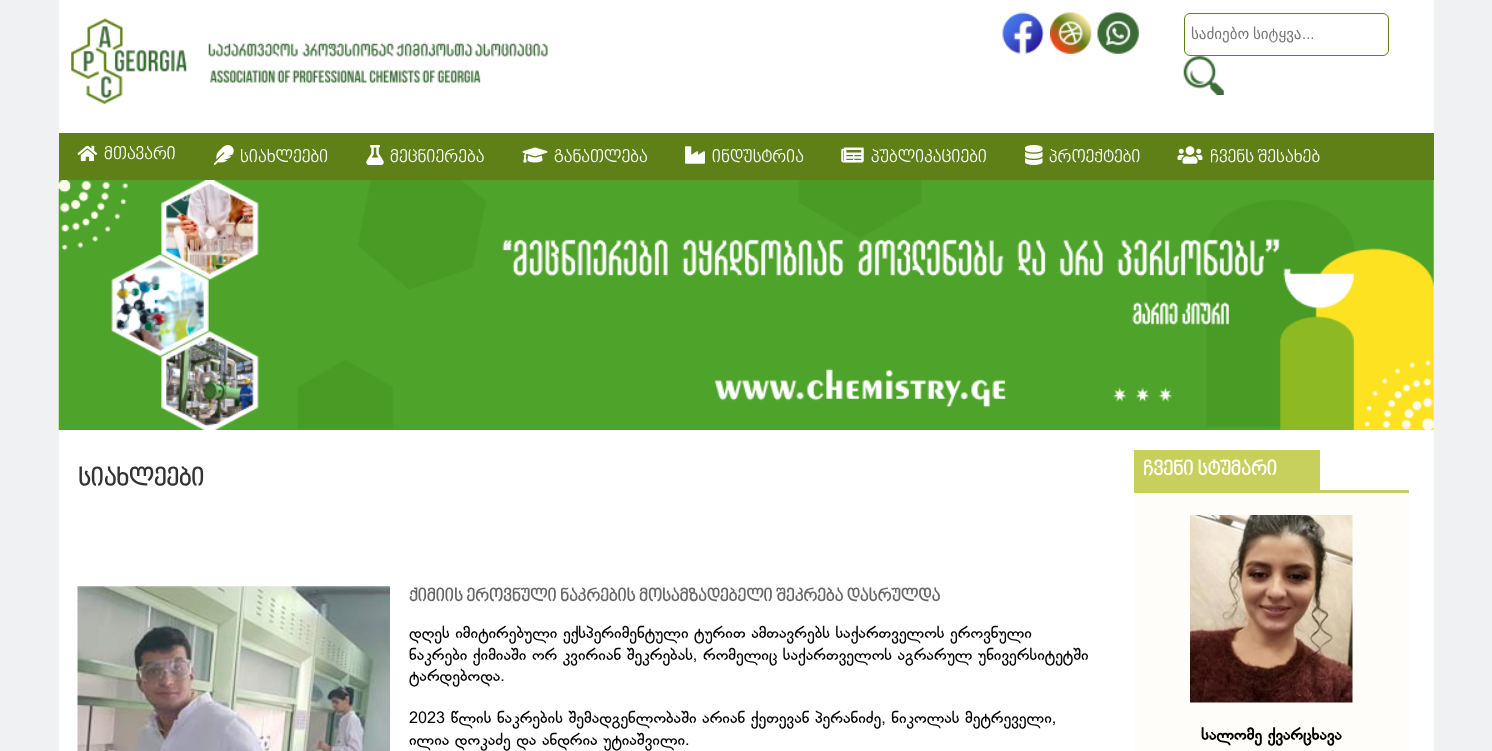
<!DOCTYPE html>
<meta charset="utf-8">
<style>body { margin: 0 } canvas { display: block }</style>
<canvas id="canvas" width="1492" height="751"></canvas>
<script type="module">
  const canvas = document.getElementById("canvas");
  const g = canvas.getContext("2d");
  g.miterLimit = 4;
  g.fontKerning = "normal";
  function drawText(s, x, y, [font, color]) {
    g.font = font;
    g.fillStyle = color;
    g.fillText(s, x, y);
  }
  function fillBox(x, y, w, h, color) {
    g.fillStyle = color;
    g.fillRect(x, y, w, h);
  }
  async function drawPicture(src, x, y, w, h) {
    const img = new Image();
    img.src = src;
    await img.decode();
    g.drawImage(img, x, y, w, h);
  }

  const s1 = ["15px DejaVu Sans", "#757575"];
  const s2 = ["15px Liberation Sans", "#757575"];
  const s3 = ["17.5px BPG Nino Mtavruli", "#FFFFFF"];
  const s4 = ["bold 25px BPG Nino Mtavruli", "#333333"];
  const s5 = ["bold 17.5px BPG Nino Mtavruli", "#666666"];
  const s6 = ["16.25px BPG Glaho", "#000000"];
  const s7 = ["bold 20px BPG Nino Mtavruli", "#FFFFFF"];
  const s8 = ["bold 16.25px BPG Glaho", "#000000"];

  fillBox(0, 0, 1492, 751, "#EFF1F2");
  fillBox(59, 0, 1375, 751, "#FFFFFF");
  await drawPicture("pic1.png", 71, 18, 116, 86);
  await drawPicture("pic2.png", 1002, 12, 42, 42);
  await drawPicture("pic3.png", 1050, 12, 42, 42);
  await drawPicture("pic4.png", 1097, 12, 42, 42);
  g.beginPath();
  g.roundRect(1184.5, 13.5, 204, 42, 5.5);
  g.strokeStyle = "#5F8017";
  g.stroke();
  g.wordSpacing = "-1px";
  drawText("საძიებო სიტყვა", 1191, 39, s1);
  g.wordSpacing = "0px";
  drawText("...", 1302, 39, s2);
  await drawPicture("pic5.png", 1183, 56, 41, 39);
  await drawPicture("pic6.png", 208, 43, 340, 40);
  fillBox(59, 133, 1375, 47, "#5F8017");
  await drawPicture("pic7.png", 77, 145, 21, 17);
  drawText("მთავარი", 104, 160, s3);
  await drawPicture("pic8.png", 213, 145, 21, 20);
  drawText("სიახლეები", 240, 163, s3);
  await drawPicture("pic9.png", 366, 145, 18, 20);
  drawText("მეცნიერება", 390, 163, s3);
  await drawPicture("pic10.png", 522, 147, 26, 16);
  drawText("განათლება", 554, 163, s3);
  await drawPicture("pic11.png", 685, 146, 20, 18);
  drawText("ინდუსტრია", 712, 163, s3);
  await drawPicture("pic12.png", 841, 147, 23, 16);
  drawText("პუბლიკაციები", 871, 163, s3);
  await drawPicture("pic13.png", 1025, 145, 18, 20);
  drawText("პროექტები", 1049, 163, s3);
  await drawPicture("pic14.png", 1177, 146, 26, 18);
  drawText("ჩვენს შესახებ", 1210, 163, s3);
  await drawPicture("pic15.png", 58, 180, 1376, 250);
  drawText("სიახლეები", 78, 487, s4);
  await drawPicture("pic16.png", 77, 586, 313, 165);
  drawText("ქიმიის ეროვნული ნაკრების მოსამზადებელი შეკრება დასრულდა", 409, 602, s5);
  drawText("დღეს იმიტირებული ექსპერიმენტული ტურით ამთავრებს საქართველოს ეროვნული", 409, 638, s6);
  drawText("ნაკრები ქიმიაში ორ კვირიან შეკრებას, რომელიც საქართველოს აგრარულ უნივერსიტეტში", 409, 660, s6);
  drawText("ტარდებოდა.", 409, 681, s6);
  drawText("2023 წლის ნაკრების შემადგენლობაში არიან ქეთევან პერანიძე, ნიკოლას მეტრეველი,", 409, 723, s6);
  drawText("ილია დოკაძე და ანდრია უტიაშვილი.", 409, 745, s6);
  fillBox(1134, 450, 186, 40, "#C7D05D");
  drawText("ჩვენი სტუმარი", 1143, 476, s7);
  fillBox(1134, 493, 275, 258, "#FEFDF9");
  fillBox(1134, 490, 275, 3, "#C7D05D");
  await drawPicture("pic17.png", 1190, 515, 163, 188);
  drawText("სალომე ქვარცხავა", 1201, 740, s8);
</script>
